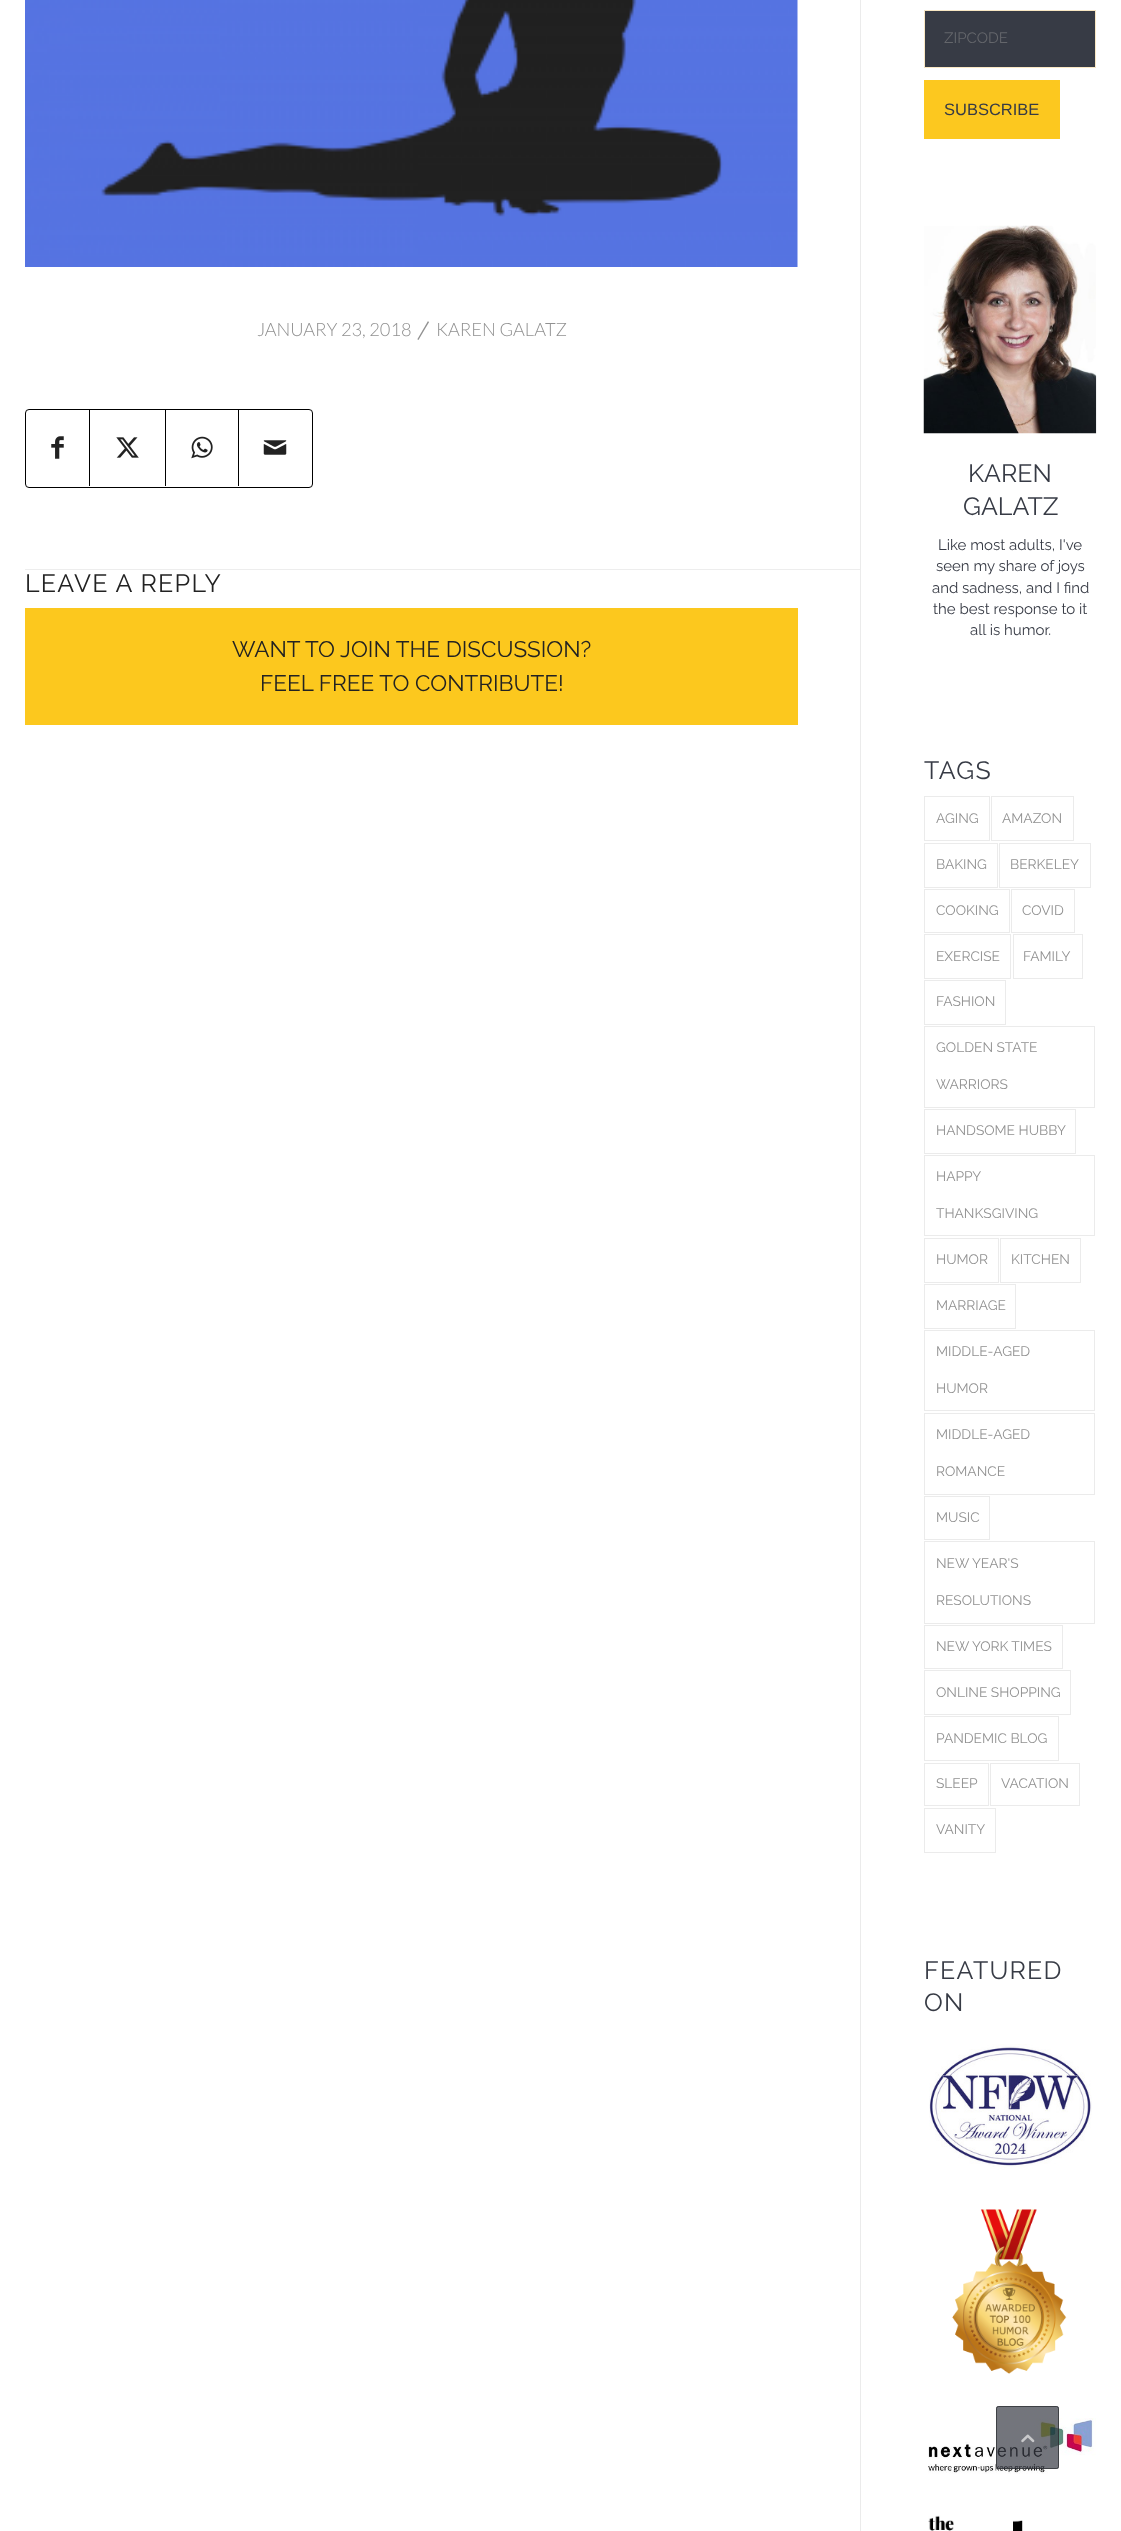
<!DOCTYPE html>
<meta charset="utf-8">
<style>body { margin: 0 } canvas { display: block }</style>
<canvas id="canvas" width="1121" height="2531"></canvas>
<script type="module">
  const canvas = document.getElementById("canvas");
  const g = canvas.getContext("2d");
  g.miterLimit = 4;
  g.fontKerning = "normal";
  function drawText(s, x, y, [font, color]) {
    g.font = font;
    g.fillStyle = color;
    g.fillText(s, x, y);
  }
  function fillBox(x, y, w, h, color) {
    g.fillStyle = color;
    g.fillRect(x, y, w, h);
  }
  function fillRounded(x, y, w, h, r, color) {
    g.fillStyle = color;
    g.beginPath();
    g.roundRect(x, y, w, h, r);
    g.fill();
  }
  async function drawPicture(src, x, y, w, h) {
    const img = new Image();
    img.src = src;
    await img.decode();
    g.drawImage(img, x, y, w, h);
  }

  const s1 = ["300 18.25px Lato", "#919191"];
  const s2 = ["18px Lora", "#919191"];
  const s3 = ["25px Raleway", "#222222"];
  const s4 = ["22.5px Raleway", "#222222"];
  const s5 = ["15px Raleway", "#64666B"];
  const s6 = ["16.5px Liberation Sans", "#373B45"];
  const s7 = ["25px Raleway", "#373B45"];
  const s8 = ["15px Raleway", "#373B45"];
  const s9 = ["13.75px Raleway", "#919191"];

  fillBox(0, 0, 1121, 2531, "#FFFFFF");
  fillBox(25, 569, 835, 1, "#EDEDED");
  await drawPicture("pic1.png", 25, 0, 773, 267);
  drawText("JANUARY 23, 2018", 257, 336, s1);
  drawText("/", 417, 335, s2);
  drawText("KAREN GALATZ", 436, 336, s1);
  g.beginPath();
  g.roundRect(25.5, 409.5, 287, 78, 3.5);
  g.strokeStyle = "#000000";
  g.stroke();
  await drawPicture("pic2.png", 51, 436, 13, 23);
  fillBox(89, 410, 1, 76, "#000000");
  await drawPicture("pic3.png", 116, 437, 23, 21);
  fillBox(165, 410, 1, 76, "#000000");
  await drawPicture("pic4.png", 191, 436, 22, 23);
  fillBox(238, 410, 1, 76, "#000000");
  await drawPicture("pic5.png", 263, 440, 24, 15);
  g.letterSpacing = "1.25px";
  drawText("LEAVE A REPLY", 25, 592, s3);
  fillBox(25, 608, 773, 117, "#FCC81E");
  g.letterSpacing = "0px";
  drawText("WANT TO JOIN THE DISCUSSION?", 232, 657, s4);
  drawText("FEEL FREE TO CONTRIBUTE!", 260, 691, s4);
  fillBox(860, 0, 1, 2531, "#EBEBEB");
  g.fillStyle = "#373B45";
  g.beginPath();
  g.rect(924.5, 10.5, 171, 57);
  g.fill();
  g.strokeStyle = "#F9E7C3";
  g.stroke();
  drawText("ZIPCODE", 944, 43, s5);
  fillBox(924, 80, 136, 59, "#FCC81F");
  drawText("SUBSCRIBE", 944, 115, s6);
  await drawPicture("pic6.png", 923, 225, 174, 209);
  drawText("KAREN", 968, 482, s7);
  drawText("GALATZ", 963, 515, s7);
  drawText("Like most adults, I've", 938, 550, s8);
  drawText("seen my share of joys", 936, 571, s8);
  drawText("and sadness, and I find", 932, 593, s8);
  drawText("the best response to it", 933, 614, s8);
  drawText("all is humor.", 970, 635, s8);
  g.letterSpacing = "1.25px";
  drawText("TAGS", 924, 779, s7);
  g.strokeStyle = "#EBEBEB";
  g.strokeRect(924.5, 796.5, 65, 44);
  g.letterSpacing = "0px";
  drawText("AGING", 936, 823, s9);
  g.strokeRect(991.5, 796.5, 82, 44);
  drawText("AMAZON", 1002, 823, s9);
  g.strokeRect(924.5, 843.5, 73, 44);
  drawText("BAKING", 936, 869, s9);
  g.strokeRect(999.5, 843.5, 91, 44);
  drawText("BERKELEY", 1010, 869, s9);
  g.strokeRect(924.5, 889.5, 85, 43);
  drawText("COOKING", 936, 915, s9);
  g.strokeRect(1011.5, 889.5, 63, 43);
  drawText("COVID", 1022, 915, s9);
  g.strokeRect(924.5, 934.5, 86, 44);
  drawText("EXERCISE", 936, 961, s9);
  g.strokeRect(1013.5, 934.5, 69, 44);
  drawText("FAMILY", 1023, 961, s9);
  g.strokeRect(924.5, 980.5, 81, 44);
  drawText("FASHION", 936, 1006, s9);
  g.strokeRect(924.5, 1026.5, 170, 81);
  drawText("GOLDEN STATE", 936, 1052, s9);
  drawText("WARRIORS", 936, 1089, s9);
  g.strokeRect(924.5, 1109.5, 151, 44);
  drawText("HANDSOME HUBBY", 936, 1135, s9);
  g.strokeRect(924.5, 1155.5, 170, 80);
  drawText("HAPPY", 936, 1181, s9);
  drawText("THANKSGIVING", 936, 1218, s9);
  g.strokeRect(924.5, 1238.5, 74, 44);
  drawText("HUMOR", 936, 1264, s9);
  g.strokeRect(1000.5, 1238.5, 80, 44);
  drawText("KITCHEN", 1011, 1264, s9);
  g.strokeRect(924.5, 1284.5, 91, 44);
  drawText("MARRIAGE", 936, 1310, s9);
  g.strokeRect(924.5, 1330.5, 170, 80);
  drawText("MIDDLE-AGED", 936, 1356, s9);
  drawText("HUMOR", 936, 1393, s9);
  g.strokeRect(924.5, 1413.5, 170, 81);
  drawText("MIDDLE-AGED", 936, 1439, s9);
  drawText("ROMANCE", 936, 1476, s9);
  g.strokeRect(924.5, 1496.5, 65, 43);
  drawText("MUSIC", 936, 1522, s9);
  g.strokeRect(924.5, 1541.5, 170, 82);
  drawText("NEW YEAR'S", 936, 1568, s9);
  drawText("RESOLUTIONS", 936, 1605, s9);
  g.strokeRect(924.5, 1625.5, 138, 43);
  drawText("NEW YORK TIMES", 936, 1651, s9);
  g.strokeRect(924.5, 1670.5, 146, 44);
  drawText("ONLINE SHOPPING", 936, 1697, s9);
  g.strokeRect(924.5, 1716.5, 134, 44);
  drawText("PANDEMIC BLOG", 936, 1743, s9);
  g.strokeRect(924.5, 1763.5, 64, 42);
  drawText("SLEEP", 936, 1788, s9);
  g.strokeRect(990.5, 1763.5, 89, 42);
  drawText("VACATION", 1001, 1788, s9);
  g.strokeRect(924.5, 1808.5, 71, 44);
  drawText("VANITY", 936, 1834, s9);
  g.letterSpacing = "1.25px";
  drawText("FEATURED", 924, 1979, s7);
  drawText("ON", 924, 2011, s7);
  await drawPicture("pic7.png", 929, 2044, 163, 126);
  await drawPicture("pic8.png", 952, 2209, 115, 165);
  await drawPicture("pic9.png", 928, 2418, 168, 56);
  await drawPicture("pic10.png", 928, 2515, 95, 16);
  fillRounded(996, 2406, 63, 63, 2.5, "rgba(55, 59, 69, 0.7)");
  g.beginPath();
  g.roundRect(996.5, 2406.5, 62, 62, 2);
  g.strokeStyle = "rgba(40, 43, 46, 0.7)";
  g.stroke();
  await drawPicture("pic11.png", 1021, 2434, 14, 9);
</script>
